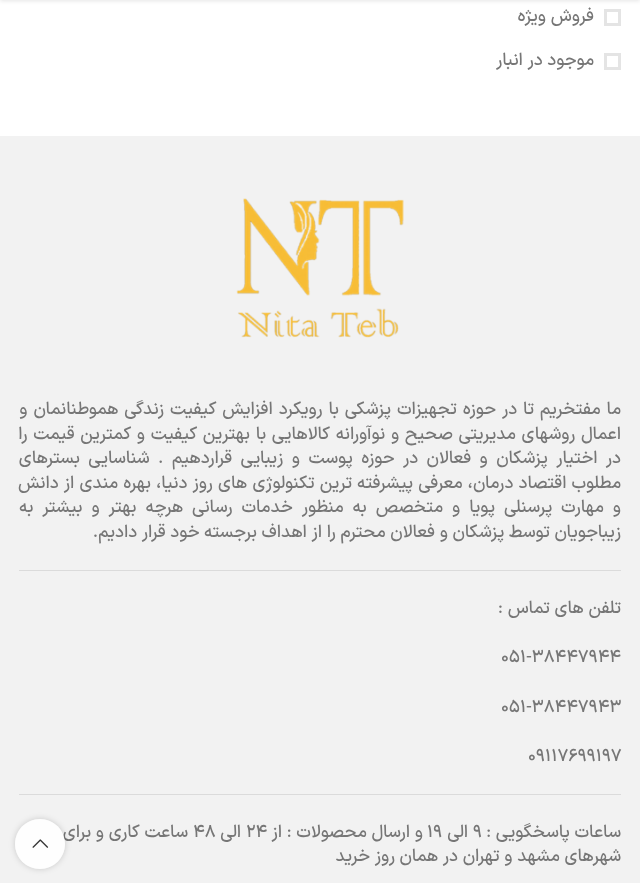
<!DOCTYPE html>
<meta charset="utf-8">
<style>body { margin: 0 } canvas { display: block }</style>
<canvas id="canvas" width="640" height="883"></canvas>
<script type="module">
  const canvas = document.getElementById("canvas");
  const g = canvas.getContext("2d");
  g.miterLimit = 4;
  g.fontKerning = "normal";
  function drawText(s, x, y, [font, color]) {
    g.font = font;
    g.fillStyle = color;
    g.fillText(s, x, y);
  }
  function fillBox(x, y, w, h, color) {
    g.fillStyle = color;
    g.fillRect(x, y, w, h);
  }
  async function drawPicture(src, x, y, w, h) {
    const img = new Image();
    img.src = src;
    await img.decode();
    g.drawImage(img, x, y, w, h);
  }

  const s1 = ["500 17.5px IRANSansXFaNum", "#767676"];

  fillBox(0, 0, 640, 883, "#FFFFFF");
  g.fillStyle = "rgba(0, 0, 0, 0.1)";
  g.filter = "blur(2px)";
  g.beginPath();
  g.rect(0, -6, 640, 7);
  g.fill();
  g.filter = "none";
  g.strokeStyle = "#E4E4E4";
  g.lineWidth = 3;
  g.strokeRect(605.5, 10.5, 14, 14);
  g.direction = "rtl";
  drawText("فروش ویژه", 594, 21, s1);
  g.strokeRect(605.5, 54.5, 14, 14);
  drawText("موجود در انبار", 594, 65, s1);
  fillBox(0, 136, 640, 747, "#F2F2F2");
  await drawPicture("pic1.png", 236, 198, 168, 140);
  g.wordSpacing = "1.25px";
  drawText("ما مفتخریم تا در حوزه تجهیزات پزشکی با رویکرد افزایش کیفیت زندگی هموطنانمان و", 621, 414, s1);
  g.wordSpacing = "1px";
  drawText("اعمال روشهای مدیریتی صحیح و نوآورانه کالاهایی با بهترین کیفیت و کمترین قیمت را", 621, 439, s1);
  g.wordSpacing = "3.75px";
  drawText("در اختیار پزشکان و فعالان در حوزه پوست و زیبایی قراردهیم . شناسایی بسترهای", 621, 463, s1);
  g.wordSpacing = "0.5px";
  drawText("مطلوب اقتصاد درمان، معرفی پیشرفته ترین تکنولوژی های روز دنیا، بهره مندی از دانش", 621, 488, s1);
  g.wordSpacing = "4.25px";
  drawText("و مهارت پرسنلی پویا و متخصص به منظور خدمات رسانی هرچه بهتر و بیشتر به", 621, 512, s1);
  g.wordSpacing = "0px";
  drawText("زیباجویان توسط پزشکان و فعالان محترم را از اهداف برجسته خود قرار دادیم.", 621, 537, s1);
  fillBox(19, 570, 602, 1, "#DBDBDB");
  drawText("تلفن های تماس :", 621, 613, s1);
  g.direction = "ltr";
  drawText("051-38447944", 501, 662, s1);
  drawText("051-38447943", 501, 712, s1);
  drawText("09117699197", 528, 761, s1);
  fillBox(19, 794, 602, 1, "#DBDBDB");
  g.direction = "rtl";
  drawText("ساعات پاسخگویی :", 621, 837, s1);
  g.direction = "ltr";
  drawText("9", 473, 837, s1);
  g.direction = "rtl";
  drawText("الی", 468, 837, s1);
  g.direction = "ltr";
  drawText("19", 427, 837, s1);
  g.direction = "rtl";
  drawText("و ارسال محصولات : از", 423, 837, s1);
  g.direction = "ltr";
  drawText("24", 246, 837, s1);
  g.direction = "rtl";
  drawText("الی", 241, 837, s1);
  g.direction = "ltr";
  drawText("48", 193, 837, s1);
  g.direction = "rtl";
  drawText("ساعت کاری و برای", 188, 837, s1);
  drawText("شهرهای مشهد و تهران در همان روز خرید", 621, 861, s1);
  g.save();
  g.beginPath();
  g.moveTo(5, 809);
  g.lineTo(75, 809);
  g.lineTo(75, 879);
  g.lineTo(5, 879);
  g.closePath();
  g.moveTo(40, 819);
  g.bezierCurveTo(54, 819, 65, 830, 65, 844);
  g.bezierCurveTo(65, 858, 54, 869, 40, 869);
  g.bezierCurveTo(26, 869, 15, 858, 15, 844);
  g.bezierCurveTo(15, 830, 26, 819, 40, 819);
  g.closePath();
  g.clip("evenodd");
  g.fillStyle = "rgba(0, 0, 0, 0.17)";
  g.filter = "blur(3px)";
  g.beginPath();
  g.roundRect(15, 819, 50, 50, 25);
  g.fill();
  g.filter = "none";
  g.restore();
  g.fillStyle = "rgba(255, 255, 255, 0.9)";
  g.beginPath();
  g.arc(40, 844, 25, 0, Math.PI * 2);
  g.fill();
  await drawPicture("pic2.png", 32, 839, 17, 9);
</script>
